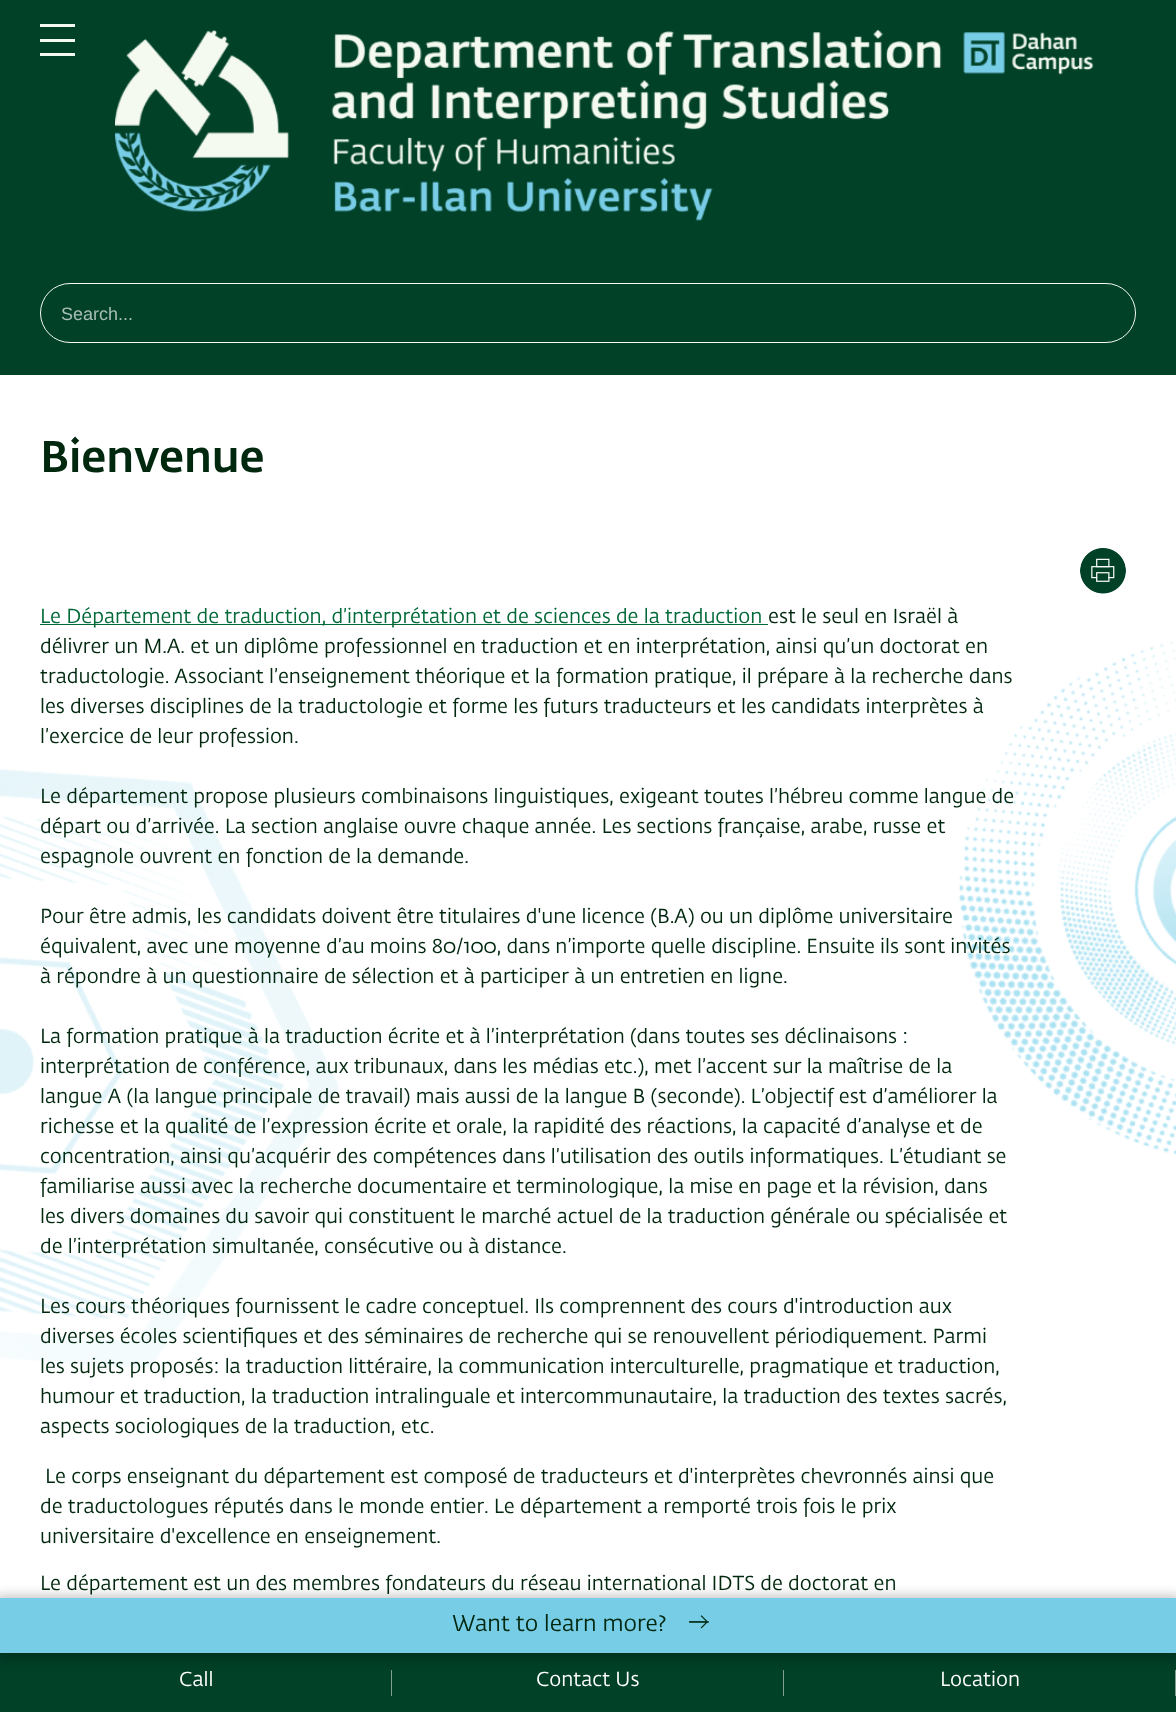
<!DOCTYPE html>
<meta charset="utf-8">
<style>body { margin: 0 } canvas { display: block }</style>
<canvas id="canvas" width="1176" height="1712"></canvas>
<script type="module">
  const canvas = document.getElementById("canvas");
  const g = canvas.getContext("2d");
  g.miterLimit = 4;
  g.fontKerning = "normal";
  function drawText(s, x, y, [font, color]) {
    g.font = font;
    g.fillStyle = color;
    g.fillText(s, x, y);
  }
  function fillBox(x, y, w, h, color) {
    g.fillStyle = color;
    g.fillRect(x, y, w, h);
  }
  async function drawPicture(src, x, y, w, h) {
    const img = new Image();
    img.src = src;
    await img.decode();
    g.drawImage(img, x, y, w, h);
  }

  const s1 = ["18px Liberation Sans", "#A8BEB6"];
  const s2 = ["500 43.75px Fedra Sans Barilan", "#00280F"];
  const s3 = ["20px Fedra Sans Barilan", "#006937"];
  const s4 = ["20px Fedra Sans Barilan", "#00280F"];
  const s5 = ["22.5px Fedra Sans Barilan", "#00280F"];
  const s6 = ["20px Fedra Sans Barilan", "#FFFFFF"];

  fillBox(0, 0, 1176, 1712, "#FFFFFF");
  fillBox(0, 0, 1176, 375, "#004128");
  fillBox(40, 24, 35, 3, "#F5FAF0");
  fillBox(40, 39, 35, 3, "#F5FAF0");
  fillBox(40, 53, 35, 3, "#F5FAF0");
  await drawPicture("pic1.png", 115, 29, 979, 192);
  g.beginPath();
  g.roundRect(40.5, 283.5, 1095, 59, 29.5);
  g.strokeStyle = "#F5FAF0";
  g.stroke();
  drawText("Search...", 61, 320, s1);
  drawText("Bienvenue", 40, 472, s2);
  await drawPicture("pic2.png", 1080, 548, 46, 46);
  fillBox(40, 624, 728, 1, "#006937");
  drawText("Le Département de traduction, d’interprétation et de sciences de la traduction", 40, 623, s3);
  drawText("est le seul en Israël à", 768, 623, s4);
  await drawPicture("pic3.png", 958, 641, 218, 514);
  drawText("délivrer un M.A. et un diplôme professionnel en traduction et en interprétation, ainsi qu’un doctorat en", 40, 653, s4);
  drawText("traductologie. Associant l’enseignement théorique et la formation pratique, il prépare à la recherche dans", 40, 683, s4);
  drawText("les diverses disciplines de la traductologie et forme les futurs traducteurs et les candidats interprètes à", 40, 713, s4);
  drawText("l’exercice de leur profession.", 40, 743, s4);
  await drawPicture("pic4.png", 0, 769, 339, 600);
  drawText("Le département propose plusieurs combinaisons linguistiques, exigeant toutes l’hébreu comme langue de", 40, 803, s4);
  drawText("départ ou d’arrivée. La section anglaise ouvre chaque année. Les sections française, arabe, russe et", 40, 833, s4);
  drawText("espagnole ouvrent en fonction de la demande.", 40, 863, s4);
  drawText("Pour être admis, les candidats doivent être titulaires d'une licence (B.A) ou un diplôme universitaire", 40, 923, s4);
  drawText("équivalent, avec une moyenne d’au moins 80/100, dans n’importe quelle discipline. Ensuite ils sont invités", 40, 953, s4);
  drawText("à répondre à un questionnaire de sélection et à participer à un entretien en ligne.", 40, 983, s4);
  drawText("La formation pratique à la traduction écrite et à l’interprétation (dans toutes ses déclinaisons :", 40, 1043, s4);
  drawText("interprétation de conférence, aux tribunaux, dans les médias etc.), met l’accent sur la maîtrise de la", 40, 1073, s4);
  drawText("langue A (la langue principale de travail) mais aussi de la langue B (seconde). L’objectif est d’améliorer la", 40, 1103, s4);
  drawText("richesse et la qualité de l’expression écrite et orale, la rapidité des réactions, la capacité d’analyse et de", 40, 1133, s4);
  drawText("concentration, ainsi qu’acquérir des compétences dans l’utilisation des outils informatiques. L’étudiant se", 40, 1163, s4);
  drawText("familiarise aussi avec la recherche documentaire et terminologique, la mise en page et la révision, dans", 40, 1193, s4);
  drawText("les divers domaines du savoir qui constituent le marché actuel de la traduction générale ou spécialisée et", 40, 1223, s4);
  drawText("de l’interprétation simultanée, consécutive ou à distance.", 40, 1253, s4);
  drawText("Les cours théoriques fournissent le cadre conceptuel. Ils comprennent des cours d'introduction aux", 40, 1313, s4);
  drawText("diverses écoles scientifiques et des séminaires de recherche qui se renouvellent périodiquement. Parmi", 40, 1343, s4);
  drawText("les sujets proposés: la traduction littéraire, la communication interculturelle, pragmatique et traduction,", 40, 1373, s4);
  drawText("humour et traduction, la traduction intralinguale et intercommunautaire, la traduction des textes sacrés,", 40, 1403, s4);
  drawText("aspects sociologiques de la traduction, etc.", 40, 1433, s4);
  drawText("Le corps enseignant du département est composé de traducteurs et d'interprètes chevronnés ainsi que", 45, 1483, s4);
  drawText("de traductologues réputés dans le monde entier. Le département a remporté trois fois le prix", 40, 1513, s4);
  drawText("universitaire d'excellence en enseignement.", 40, 1543, s4);
  drawText("Le département est un des membres fondateurs du réseau international IDTS de doctorat en", 40, 1590, s4);
  fillBox(0, 1653, 1176, 59, "#004128");
  fillBox(391, 1670, 1, 26, "#80A094");
  fillBox(783, 1670, 1, 26, "#80A094");
  fillBox(1175, 1670, 1, 26, "#80A094");
  g.fillStyle = "rgba(0, 0, 0, 0.25)";
  g.filter = "blur(6px)";
  g.beginPath();
  g.rect(-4, 1596, 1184, 63);
  g.fill();
  g.filter = "none";
  fillBox(0, 1598, 1176, 55, "#78CDE6");
  drawText("Want to learn more?", 452, 1631, s5);
  g.save();
  g.beginPath();
  g.rect(689, 1615, 20, 14);
  g.clip();
  g.beginPath();
  g.moveTo(688, 1622);
  g.lineTo(712.5, 1622);
  g.strokeStyle = "#00280F";
  g.lineWidth = 1.2;
  g.stroke();
  g.restore();
  await drawPicture("pic5.png", 689, 1615, 19, 14);
  drawText("Call", 179, 1686, s6);
  drawText("Contact Us", 536, 1686, s6);
  drawText("Location", 940, 1686, s6);
</script>
